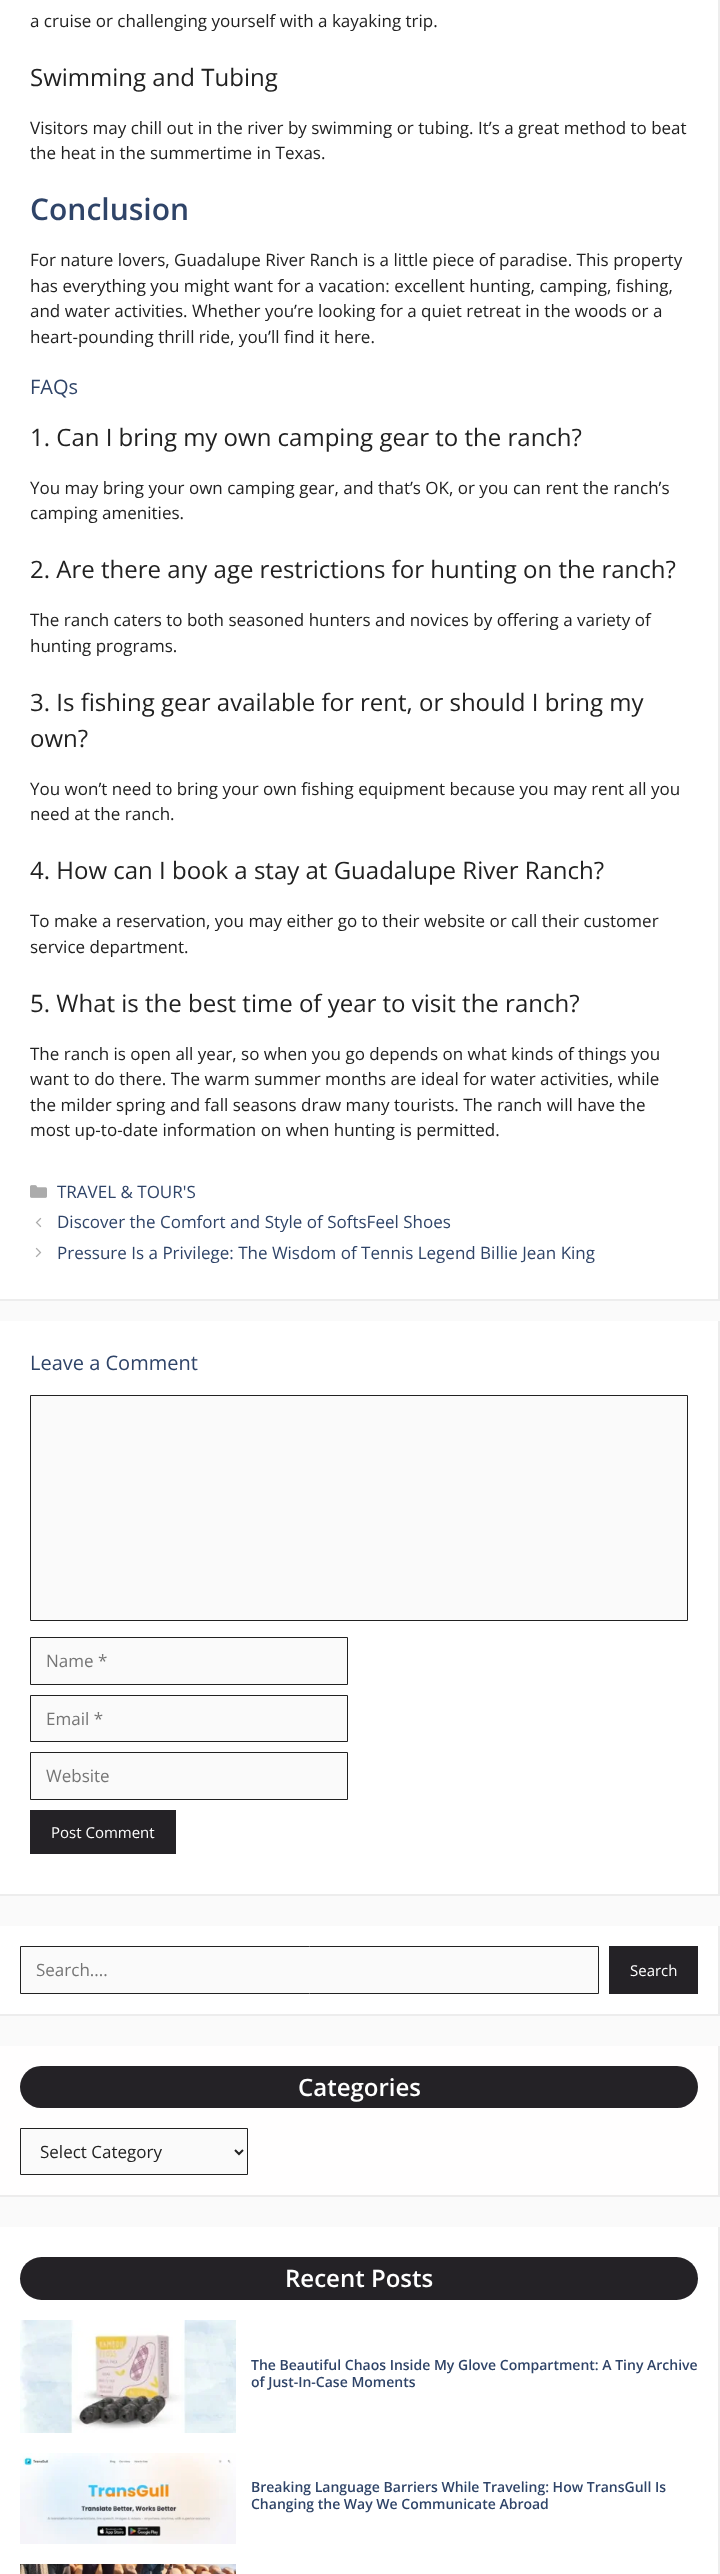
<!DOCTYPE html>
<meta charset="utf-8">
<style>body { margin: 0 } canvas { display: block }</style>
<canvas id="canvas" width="720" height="2574"></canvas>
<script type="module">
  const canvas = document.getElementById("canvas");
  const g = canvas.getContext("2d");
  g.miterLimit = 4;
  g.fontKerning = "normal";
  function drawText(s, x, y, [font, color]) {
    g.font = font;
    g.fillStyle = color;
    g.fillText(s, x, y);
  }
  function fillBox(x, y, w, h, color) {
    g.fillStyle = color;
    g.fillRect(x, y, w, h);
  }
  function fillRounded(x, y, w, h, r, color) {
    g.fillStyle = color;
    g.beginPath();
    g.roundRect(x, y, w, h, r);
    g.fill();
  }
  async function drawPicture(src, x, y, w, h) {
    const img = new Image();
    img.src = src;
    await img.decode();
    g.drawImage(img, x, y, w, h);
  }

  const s1 = ["17px Open Sans", "#212121"];
  const s2 = ["24px Open Sans", "#212121"];
  const s3 = ["600 30px Open Sans", "#2F4468"];
  const s4 = ["20px Open Sans", "#2F4468"];
  const s5 = ["17px Open Sans", "#2F4468"];
  const s6 = ["17px Open Sans", "#757575"];
  const s7 = ["15px Open Sans", "#FFFFFF"];
  const s8 = ["600 24px Open Sans", "#FFFFFF"];
  const s9 = ["600 14px Open Sans", "#2F4468"];

  fillBox(0, 0, 720, 2574, "#FAFAFA");
  fillBox(0, 0, 720, 1301, "#FFFFFF");
  g.fillStyle = "#EDEDED";
  g.beginPath();
  g.moveTo(720, -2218);
  g.lineTo(720, 1301);
  g.lineTo(718, 1299);
  g.lineTo(718, -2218);
  g.closePath();
  g.fill();
  g.fillStyle = "rgba(0, 0, 0, 0.07)";
  g.beginPath();
  g.moveTo(720, 1301);
  g.lineTo(0, 1301);
  g.lineTo(0, 1299);
  g.lineTo(718, 1299);
  g.closePath();
  g.fill();
  drawText("a cruise or challenging yourself with a kayaking trip.", 30, 27, s1);
  drawText("Swimming and Tubing", 30, 86, s2);
  drawText("Visitors may chill out in the river by swimming or tubing. It’s a great method to beat", 30, 134, s1);
  drawText("the heat in the summertime in Texas.", 30, 159, s1);
  drawText("Conclusion", 30, 220, s3);
  drawText("For nature lovers, Guadalupe River Ranch is a little piece of paradise. This property", 30, 266, s1);
  drawText("has everything you might want for a vacation: excellent hunting, camping, fishing,", 30, 292, s1);
  drawText("and water activities. Whether you’re looking for a quiet retreat in the woods or a", 30, 317, s1);
  drawText("heart-pounding thrill ride, you’ll find it here.", 30, 343, s1);
  drawText("FAQs", 30, 394, s4);
  drawText("1. Can I bring my own camping gear to the ranch?", 30, 446, s2);
  drawText("You may bring your own camping gear, and that’s OK, or you can rent the ranch’s", 30, 494, s1);
  drawText("camping amenities.", 30, 519, s1);
  drawText("2. Are there any age restrictions for hunting on the ranch?", 30, 578, s2);
  drawText("The ranch caters to both seasoned hunters and novices by offering a variety of", 30, 626, s1);
  drawText("hunting programs.", 30, 652, s1);
  drawText("3. Is fishing gear available for rent, or should I bring my", 30, 711, s2);
  drawText("own?", 30, 747, s2);
  drawText("You won’t need to bring your own fishing equipment because you may rent all you", 30, 795, s1);
  drawText("need at the ranch.", 30, 820, s1);
  drawText("4. How can I book a stay at Guadalupe River Ranch?", 30, 879, s2);
  drawText("To make a reservation, you may either go to their website or call their customer", 30, 927, s1);
  drawText("service department.", 30, 953, s1);
  drawText("5. What is the best time of year to visit the ranch?", 30, 1012, s2);
  drawText("The ranch is open all year, so when you go depends on what kinds of things you", 30, 1060, s1);
  drawText("want to do there. The warm summer months are ideal for water activities, while", 30, 1085, s1);
  drawText("the milder spring and fall seasons draw many tourists. The ranch will have the", 30, 1111, s1);
  drawText("most up-to-date information on when hunting is permitted.", 30, 1136, s1);
  await drawPicture("pic1.png", 30, 1185, 17, 13);
  drawText("TRAVEL & TOUR'S", 57, 1198, s5);
  await drawPicture("pic2.png", 35, 1217, 7, 11);
  drawText("Discover the Comfort and Style of SoftsFeel Shoes", 57, 1228, s5);
  await drawPicture("pic3.png", 35, 1247, 7, 11);
  drawText("Pressure Is a Privilege: The Wisdom of Tennis Legend Billie Jean King", 57, 1259, s5);
  fillBox(0, 1321, 720, 575, "#FFFFFF");
  g.fillStyle = "#EDEDED";
  g.beginPath();
  g.moveTo(720, 1321);
  g.lineTo(720, 1896);
  g.lineTo(718, 1894);
  g.lineTo(718, 1321);
  g.closePath();
  g.fill();
  g.fillStyle = "rgba(0, 0, 0, 0.07)";
  g.beginPath();
  g.moveTo(720, 1896);
  g.lineTo(0, 1896);
  g.lineTo(0, 1894);
  g.lineTo(718, 1894);
  g.closePath();
  g.fill();
  drawText("Leave a Comment", 30, 1370, s4);
  g.fillStyle = "#FAFAFA";
  g.beginPath();
  g.rect(30.5, 1395.5, 657, 225);
  g.fill();
  g.strokeStyle = "#212121";
  g.stroke();
  g.beginPath();
  g.rect(30.5, 1637.5, 317, 47);
  g.fill();
  g.stroke();
  drawText("Name *", 46, 1667, s6);
  g.fillStyle = "#FAFAFA";
  g.beginPath();
  g.rect(30.5, 1695.5, 317, 46);
  g.fill();
  g.stroke();
  drawText("Email *", 46, 1725, s6);
  g.fillStyle = "#FAFAFA";
  g.beginPath();
  g.rect(30.5, 1752.5, 317, 47);
  g.fill();
  g.stroke();
  drawText("Website", 46, 1782, s6);
  fillBox(30, 1810, 146, 44, "#242226");
  drawText("Post Comment", 51, 1838, s7);
  fillBox(0, 1926, 720, 90, "#FFFFFF");
  g.fillStyle = "#EDEDED";
  g.beginPath();
  g.moveTo(720, 1926);
  g.lineTo(720, 2016);
  g.lineTo(718, 2014);
  g.lineTo(718, 1926);
  g.closePath();
  g.fill();
  g.fillStyle = "rgba(0, 0, 0, 0.07)";
  g.beginPath();
  g.moveTo(720, 2016);
  g.lineTo(0, 2016);
  g.lineTo(0, 2014);
  g.lineTo(718, 2014);
  g.closePath();
  g.fill();
  g.fillStyle = "#FAFAFA";
  g.beginPath();
  g.rect(20.5, 1946.5, 578, 47);
  g.fill();
  g.stroke();
  drawText("Search....", 36, 1976, s6);
  fillBox(609, 1946, 89, 48, "#242226");
  drawText("Search", 630, 1976, s7);
  fillBox(0, 2046, 720, 151, "#FFFEFE");
  g.fillStyle = "#EDECEC";
  g.beginPath();
  g.moveTo(720, 2046);
  g.lineTo(720, 2197);
  g.lineTo(718, 2195);
  g.lineTo(718, 2046);
  g.closePath();
  g.fill();
  g.fillStyle = "rgba(0, 0, 0, 0.07)";
  g.beginPath();
  g.moveTo(720, 2197);
  g.lineTo(0, 2197);
  g.lineTo(0, 2195);
  g.lineTo(718, 2195);
  g.closePath();
  g.fill();
  fillRounded(20, 2066, 678, 42, 21, "#242226");
  drawText("Categories", 298, 2096, s8);
  g.fillStyle = "#FAFAFA";
  g.beginPath();
  g.rect(20.5, 2128.5, 227, 46);
  g.fill();
  g.stroke();
  g.beginPath();
  g.moveTo(235, 2150);
  g.lineTo(239, 2154);
  g.lineTo(243, 2150);
  g.lineWidth = 2;
  g.stroke();
  drawText("Select Category", 40, 2158, s1);
  fillBox(0, 2227, 718, 347, "#FFFFFF");
  g.fillStyle = "#EDEDED";
  g.beginPath();
  g.moveTo(720, 2227);
  g.lineTo(720, 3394);
  g.lineTo(718, 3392);
  g.lineTo(718, 2227);
  g.closePath();
  g.fill();
  fillRounded(20, 2257, 678, 43, 21.5, "#242226");
  drawText("Recent Posts", 285, 2287, s8);
  await drawPicture("pic4.png", 20, 2320, 216, 113);
  drawText("The Beautiful Chaos Inside My Glove Compartment: A Tiny Archive", 251, 2370, s9);
  drawText("of Just-In-Case Moments", 251, 2387, s9);
  await drawPicture("pic5.png", 20, 2453, 216, 91);
  drawText("Breaking Language Barriers While Traveling: How TransGull Is", 251, 2492, s9);
  drawText("Changing the Way We Communicate Abroad", 251, 2509, s9);
  await drawPicture("pic6.png", 20, 2564, 216, 10);
</script>
